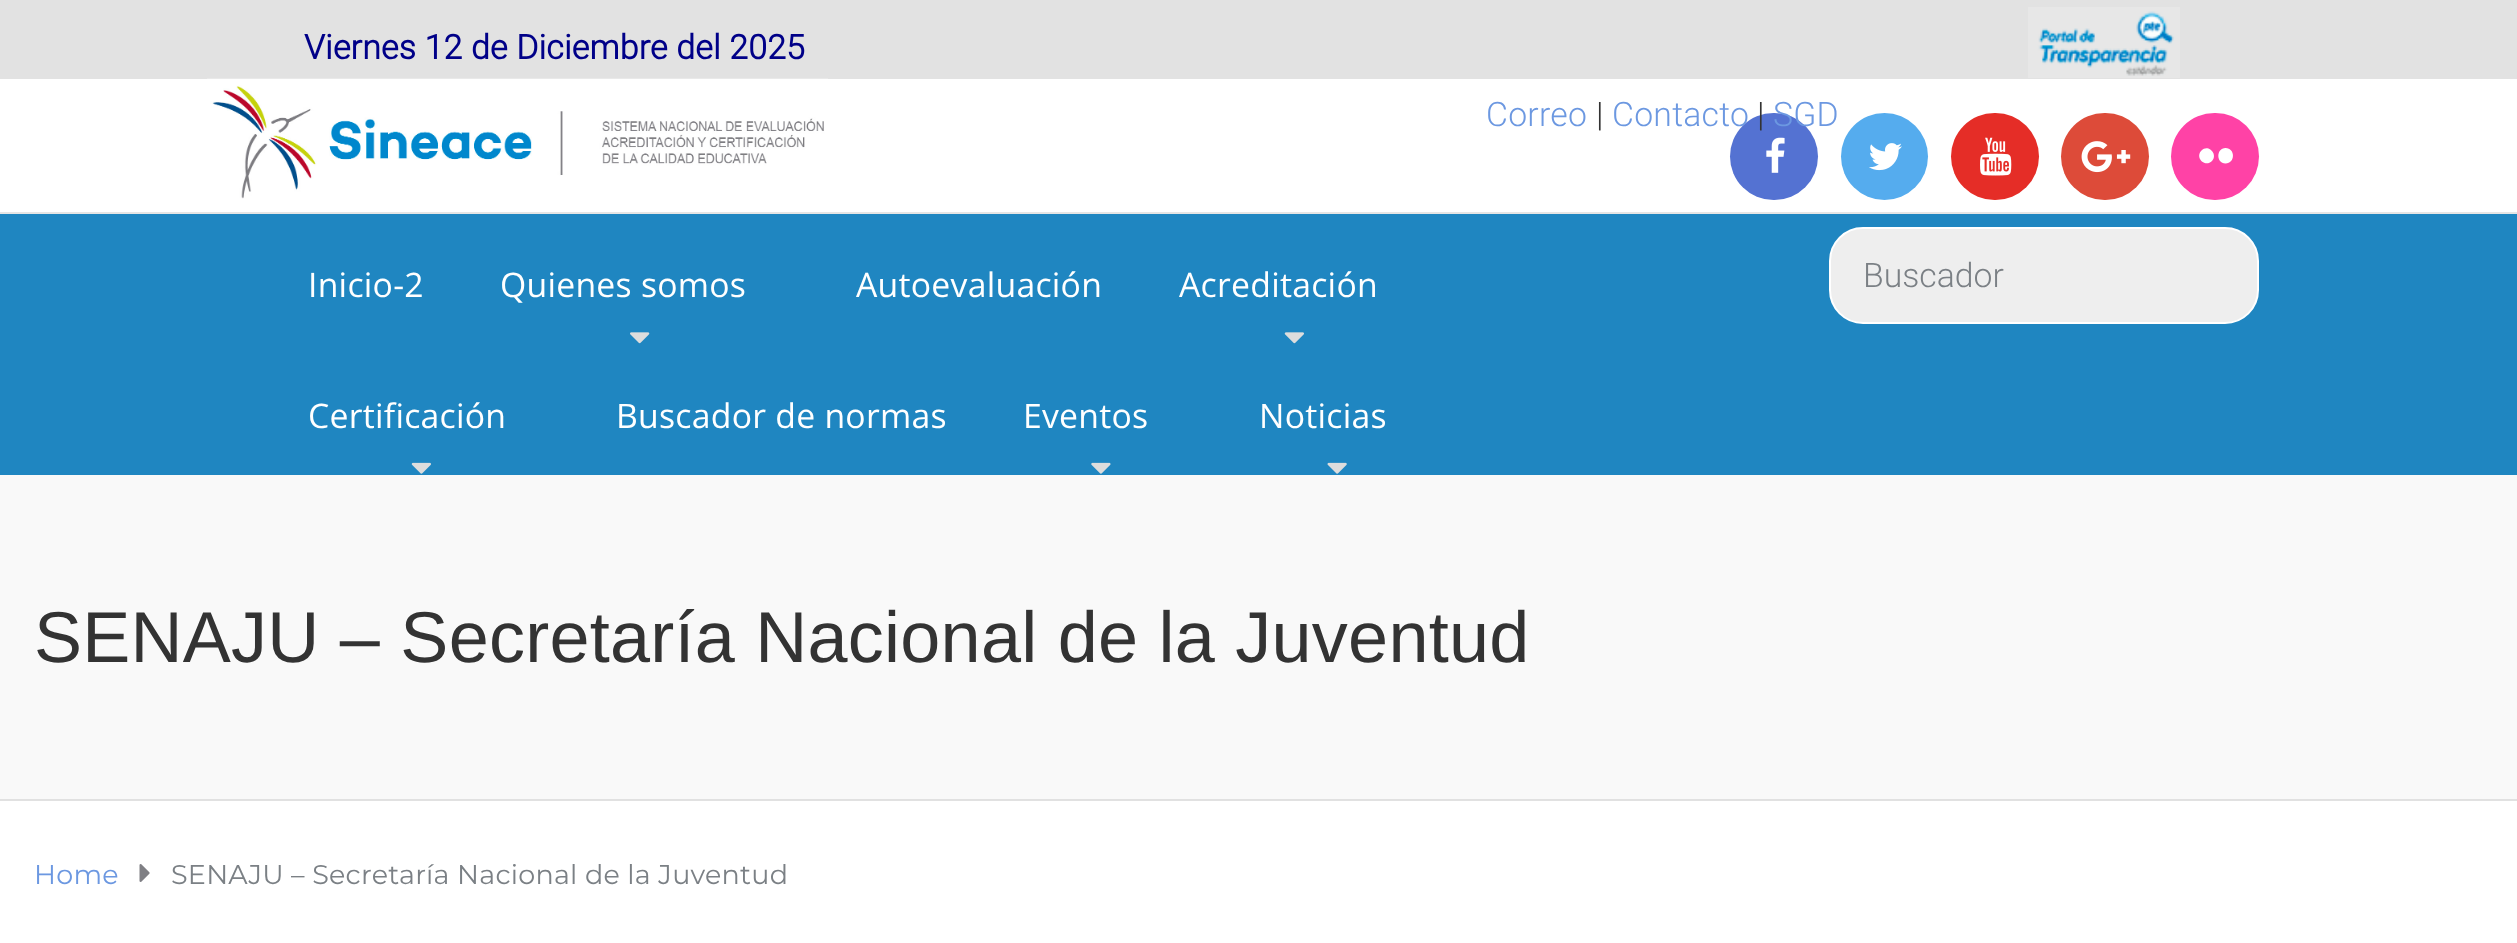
<!DOCTYPE html>
<meta charset="utf-8">
<style>body { margin: 0 } canvas { display: block }</style>
<canvas id="canvas" width="2517" height="943"></canvas>
<script type="module">
  const canvas = document.getElementById("canvas");
  const g = canvas.getContext("2d");
  g.miterLimit = 4;
  g.fontKerning = "normal";
  function drawText(s, x, y, [font, color]) {
    g.font = font;
    g.fillStyle = color;
    g.fillText(s, x, y);
  }
  function fillBox(x, y, w, h, color) {
    g.fillStyle = color;
    g.fillRect(x, y, w, h);
  }
  function fillRounded(x, y, w, h, r, color) {
    g.fillStyle = color;
    g.beginPath();
    g.roundRect(x, y, w, h, r);
    g.fill();
  }
  async function drawPicture(src, x, y, w, h) {
    const img = new Image();
    img.src = src;
    await img.decode();
    g.drawImage(img, x, y, w, h);
  }

  const s1 = ["bold 33.75px Roboto", "#000088"];
  const s2 = ["300 33.75px Roboto", "#6C98E1"];
  const s3 = ["300 33.75px Roboto", "#333333"];
  const s4 = ["33.75px Open Sans", "#FFFFFF"];
  const s5 = ["300 33.75px Roboto", "#7B8085"];
  const s6 = ["72px Liberation Sans", "#333333"];
  const s7 = ["27px Montserrat", "#6C98E1"];
  const s8 = ["27px Montserrat", "#7B8085"];

  fillBox(0, 0, 2517, 943, "#FFFFFF");
  fillBox(0, 0, 2517, 79, "#E2E2E2");
  g.letterSpacing = "0.25px";
  drawText("Viernes 12 de Diciembre del 2025", 304, 59, s1);
  await drawPicture("pic1.png", 2028, 7, 152, 71);
  drawText("Correo", 1486, 126, s2);
  drawText("|", 1596, 126, s3);
  fillRounded(1730, 113, 88, 87, 43.5, "#5472D2");
  drawText("Contacto", 1612, 126, s2);
  drawText("|", 1757, 126, s3);
  drawText("SGD", 1773, 126, s2);
  fillBox(0, 212, 2517, 2, "#E5E5E5");
  await drawPicture("pic2.png", 207, 78, 621, 121);
  await drawPicture("pic3.png", 1766, 137, 19, 36);
  g.fillStyle = "#55ACEE";
  g.beginPath();
  g.arc(1884.5, 156.5, 43.5, 0, Math.PI * 2);
  g.fill();
  await drawPicture("pic4.png", 1869, 143, 33, 28);
  fillRounded(1951, 113, 88, 87, 43.5, "#E52D27");
  await drawPicture("pic5.png", 1980, 137, 32, 39);
  fillRounded(2061, 113, 88, 87, 43.5, "#DD4B39");
  await drawPicture("pic6.png", 2081, 141, 50, 32);
  fillRounded(2171, 113, 88, 87, 43.5, "#FF42A6");
  g.fillStyle = "#FFFFFF";
  g.beginPath();
  g.moveTo(2201.5, 150.5);
  g.bezierCurveTo(2208, 143.5, 2218.5, 154, 2212, 161);
  g.bezierCurveTo(2205, 168, 2194.5, 157.5, 2201.5, 150.5);
  g.closePath();
  g.moveTo(2225.5, 163.5);
  g.bezierCurveTo(2216, 163.5, 2216, 148, 2225.5, 148);
  g.bezierCurveTo(2235.5, 148, 2235.5, 163.5, 2225.5, 163.5);
  g.closePath();
  g.fill();
  fillBox(0, 214, 2517, 261, "#1F86C1");
  drawText("Inicio-2", 308, 297, s4);
  drawText("Quienes somos", 500, 297, s4);
  await drawPicture("pic7.png", 630, 332, 20, 12);
  drawText("Autoevaluación", 856, 297, s4);
  drawText("Acreditación", 1179, 297, s4);
  await drawPicture("pic8.png", 1284, 332, 20, 12);
  drawText("Certificación", 308, 428, s4);
  await drawPicture("pic9.png", 411, 462, 20, 12);
  drawText("Buscador de normas", 616, 428, s4);
  drawText("Eventos", 1023, 428, s4);
  await drawPicture("pic10.png", 1091, 462, 20, 12);
  drawText("Noticias", 1259, 428, s4);
  await drawPicture("pic11.png", 1327, 462, 20, 12);
  g.fillStyle = "#EEEEEE";
  g.beginPath();
  g.roundRect(1830, 228, 428, 95, 33);
  g.fill();
  g.strokeStyle = "#FFFFFF";
  g.lineWidth = 2;
  g.stroke();
  g.letterSpacing = "0px";
  drawText("Buscador", 1863, 287, s5);
  fillBox(0, 475, 2517, 324, "#F9F9F9");
  fillBox(0, 799, 2517, 2, "#E1E1E1");
  g.letterSpacing = "0.25px";
  drawText("SENAJU – Secretaría Nacional de la Juventud", 34, 662, s6);
  drawText("Home", 34, 884, s7);
  await drawPicture("pic12.png", 139, 864, 11, 18);
  drawText("SENAJU – Secretaría Nacional de la Juventud", 171, 884, s8);
</script>
